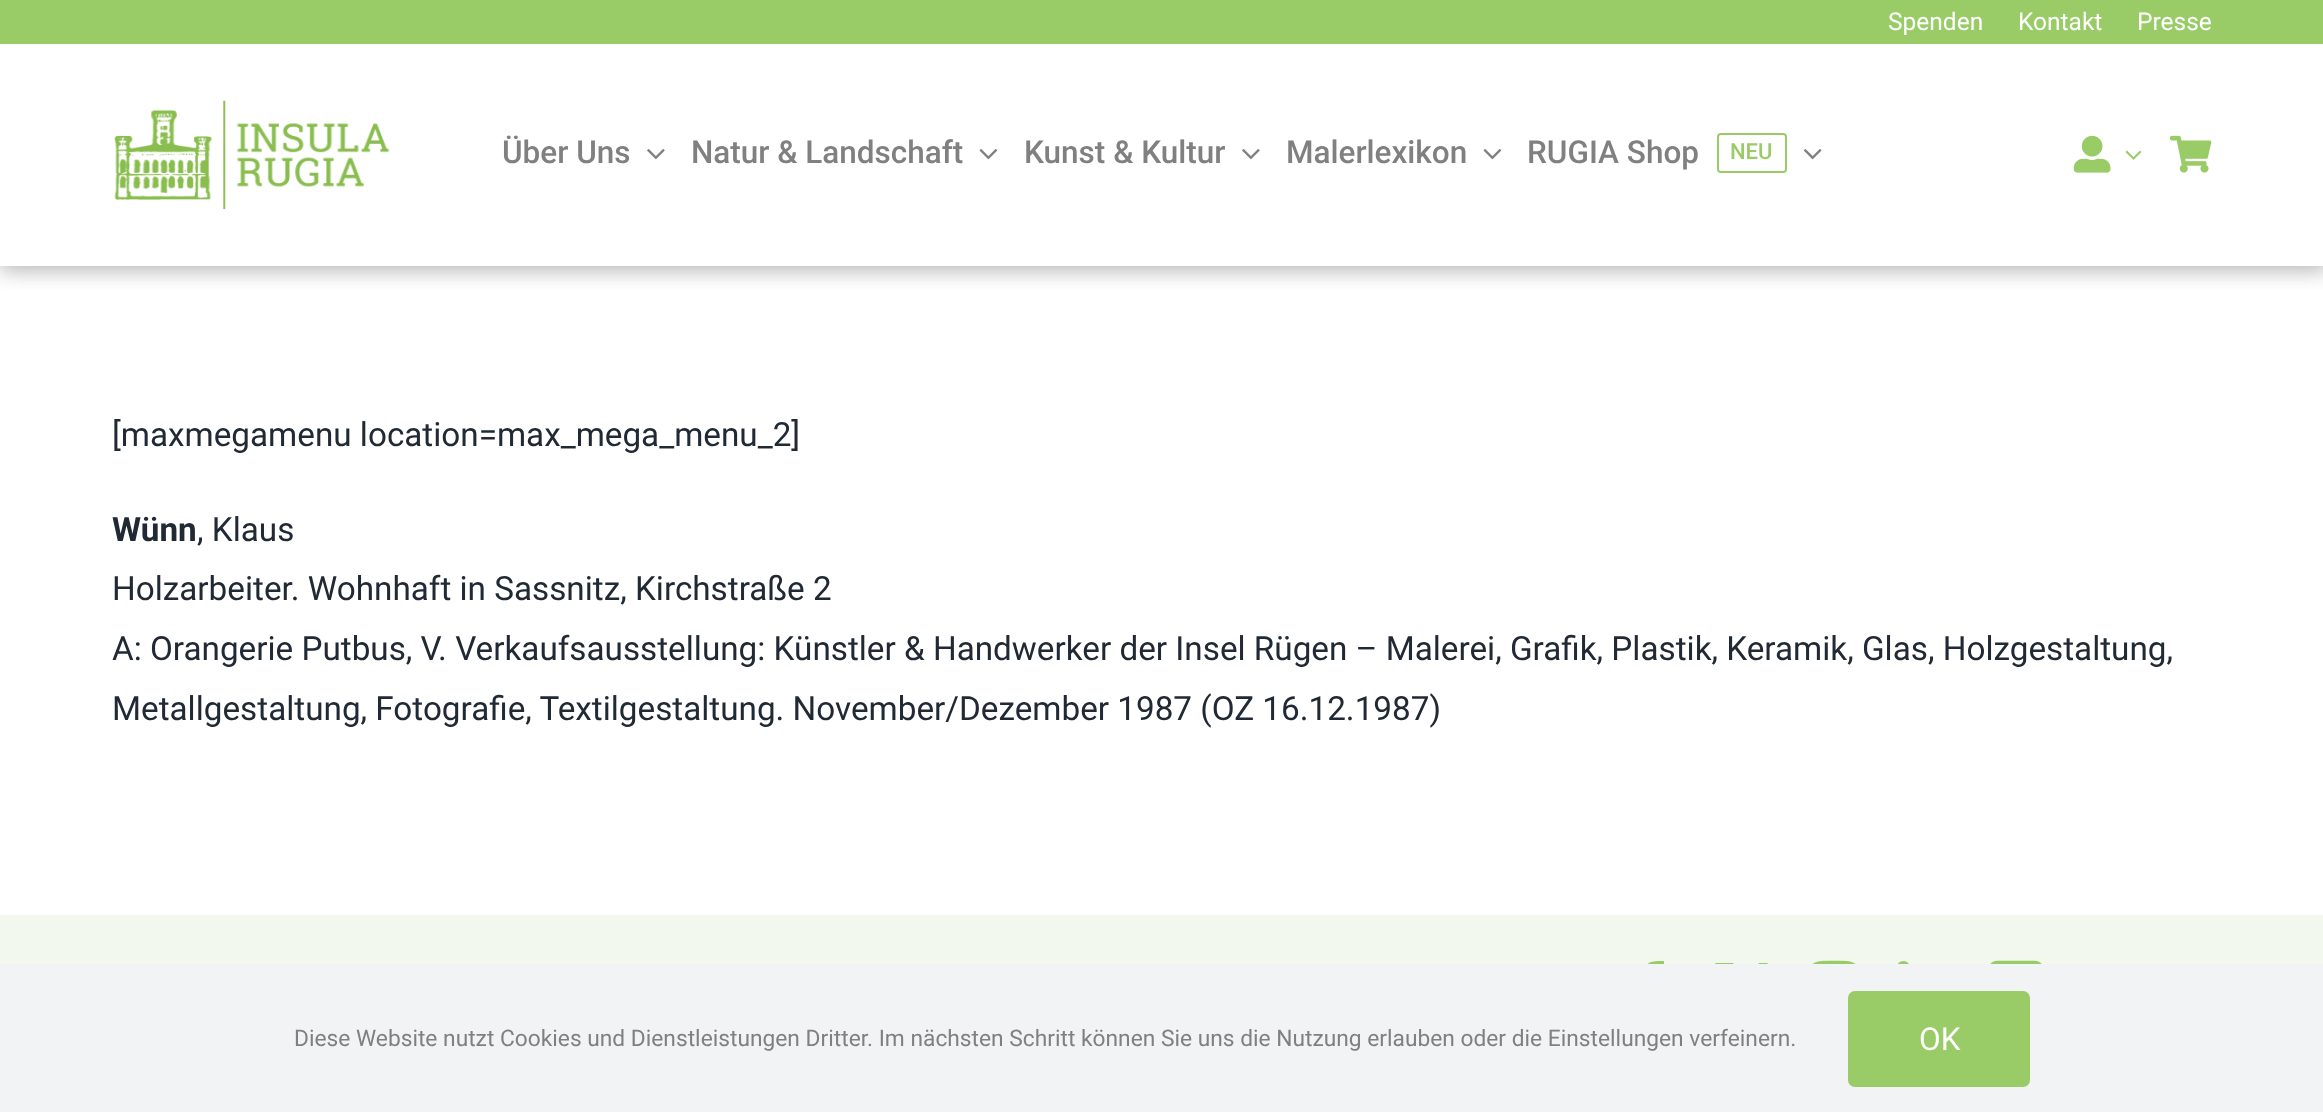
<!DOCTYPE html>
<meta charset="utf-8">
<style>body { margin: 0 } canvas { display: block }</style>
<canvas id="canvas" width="2323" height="1112"></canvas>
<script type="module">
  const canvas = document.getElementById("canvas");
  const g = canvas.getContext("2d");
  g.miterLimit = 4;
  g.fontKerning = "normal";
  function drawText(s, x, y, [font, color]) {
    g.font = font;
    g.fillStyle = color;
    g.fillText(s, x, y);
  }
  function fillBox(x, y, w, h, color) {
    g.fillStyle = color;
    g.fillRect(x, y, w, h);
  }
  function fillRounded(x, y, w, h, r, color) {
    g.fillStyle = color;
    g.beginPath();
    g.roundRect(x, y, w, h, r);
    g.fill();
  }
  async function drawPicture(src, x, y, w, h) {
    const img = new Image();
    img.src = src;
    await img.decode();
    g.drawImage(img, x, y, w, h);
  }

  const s1 = ["24.5px Roboto", "#FFFFFF"];
  const s2 = ["500 31.5px Roboto", "#808080"];
  const s3 = ["500 22px Roboto", "#99CC66"];
  const s4 = ["33.25px Roboto", "#212934"];
  const s5 = ["bold 33.25px Roboto", "#212934"];
  const s6 = ["22.75px Roboto", "#808080"];
  const s7 = ["31.5px Roboto", "#FFFFFF"];

  fillBox(0, 0, 2323, 1112, "#FFFFFF");
  g.save();
  g.beginPath();
  g.rect(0, 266, 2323, 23);
  g.clip();
  g.fillStyle = "rgba(128, 128, 128, 0.61)";
  g.filter = "blur(10.5px)";
  g.beginPath();
  g.rect(0, 44, 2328, 226);
  g.fill();
  g.filter = "none";
  g.restore();
  fillBox(0, 0, 2323, 44, "#99CC66");
  drawText("Spenden", 1888, 30, s1);
  drawText("Kontakt", 2018, 30, s1);
  drawText("Presse", 2137, 30, s1);
  await drawPicture("pic1.png", 114, 100, 276, 109);
  drawText("Über Uns", 502, 163, s2);
  await drawPicture("pic2.png", 647, 149, 18, 11);
  drawText("Natur & Landschaft", 691, 163, s2);
  await drawPicture("pic3.png", 979, 149, 19, 11);
  drawText("Kunst & Kultur", 1024, 163, s2);
  await drawPicture("pic2.png", 1242, 149, 18, 11);
  drawText("Malerlexikon", 1286, 163, s2);
  await drawPicture("pic3.png", 1483, 149, 19, 11);
  drawText("RUGIA Shop", 1527, 163, s2);
  g.beginPath();
  g.roundRect(1718, 134, 68, 38, 3);
  g.strokeStyle = "#99CC66";
  g.lineWidth = 2;
  g.stroke();
  drawText("NEU", 1730, 159, s3);
  await drawPicture("pic4.png", 1803, 149, 19, 11);
  await drawPicture("pic5.png", 2073, 135, 38, 38);
  await drawPicture("pic6.png", 2125, 150, 17, 10);
  await drawPicture("pic7.png", 2170, 135, 42, 38);
  drawText("[maxmegamenu location=max_mega_menu_2]", 112, 446, s4);
  drawText("Wünn", 112, 541, s5);
  drawText(", Klaus", 197, 541, s4);
  drawText("Holzarbeiter. Wohnhaft in Sassnitz, Kirchstraße 2", 112, 600, s4);
  drawText("A: Orangerie Putbus, V. Verkaufsausstellung: Künstler & Handwerker der Insel Rügen – Malerei, Grafik, Plastik, Keramik, Glas, Holzgestaltung,", 112, 660, s4);
  drawText("Metallgestaltung, Fotografie, Textilgestaltung. November/Dezember 1987 (OZ 16.12.1987)", 112, 720, s4);
  fillBox(0, 915, 2323, 49, "#F2F8EE");
  g.fillStyle = "#99CC66";
  g.beginPath();
  g.moveTo(1656, 1017);
  g.lineTo(1645, 1017);
  g.lineTo(1645, 989);
  g.lineTo(1638, 989);
  g.lineTo(1638, 979);
  g.lineTo(1645, 979);
  g.bezierCurveTo(1645, 962, 1647, 961, 1664, 961);
  g.lineTo(1664, 970);
  g.bezierCurveTo(1655, 970, 1656, 970, 1656, 979);
  g.lineTo(1664, 979);
  g.lineTo(1663, 989);
  g.lineTo(1656, 989);
  g.closePath();
  g.fill();
  await drawPicture("pic8.png", 1812, 960, 44, 4);
  await drawPicture("pic9.png", 1898, 961, 11, 3);
  await drawPicture("pic10.png", 1990, 960, 52, 4);
  g.beginPath();
  g.moveTo(1759, 963);
  g.lineTo(1768, 963);
  g.lineTo(1749, 985);
  g.lineTo(1771, 1014);
  g.lineTo(1754, 1014);
  g.lineTo(1740, 996);
  g.lineTo(1725, 1014);
  g.lineTo(1716, 1014);
  g.lineTo(1736, 991);
  g.lineTo(1715, 963);
  g.lineTo(1733, 963);
  g.lineTo(1745, 980);
  g.closePath();
  g.moveTo(1756, 1009);
  g.lineTo(1761, 1009);
  g.lineTo(1730, 968);
  g.lineTo(1725, 968);
  g.closePath();
  g.fill();
  fillBox(0, 964, 2323, 148, "#F2F3F5");
  drawText("Diese Website nutzt Cookies und Dienstleistungen Dritter. Im nächsten Schritt können Sie uns die Nutzung erlauben oder die Einstellungen verfeinern.", 294, 1046, s6);
  fillRounded(1848, 991, 182, 96, 7, "#99CC66");
  drawText("OK", 1919, 1050, s7);
</script>
